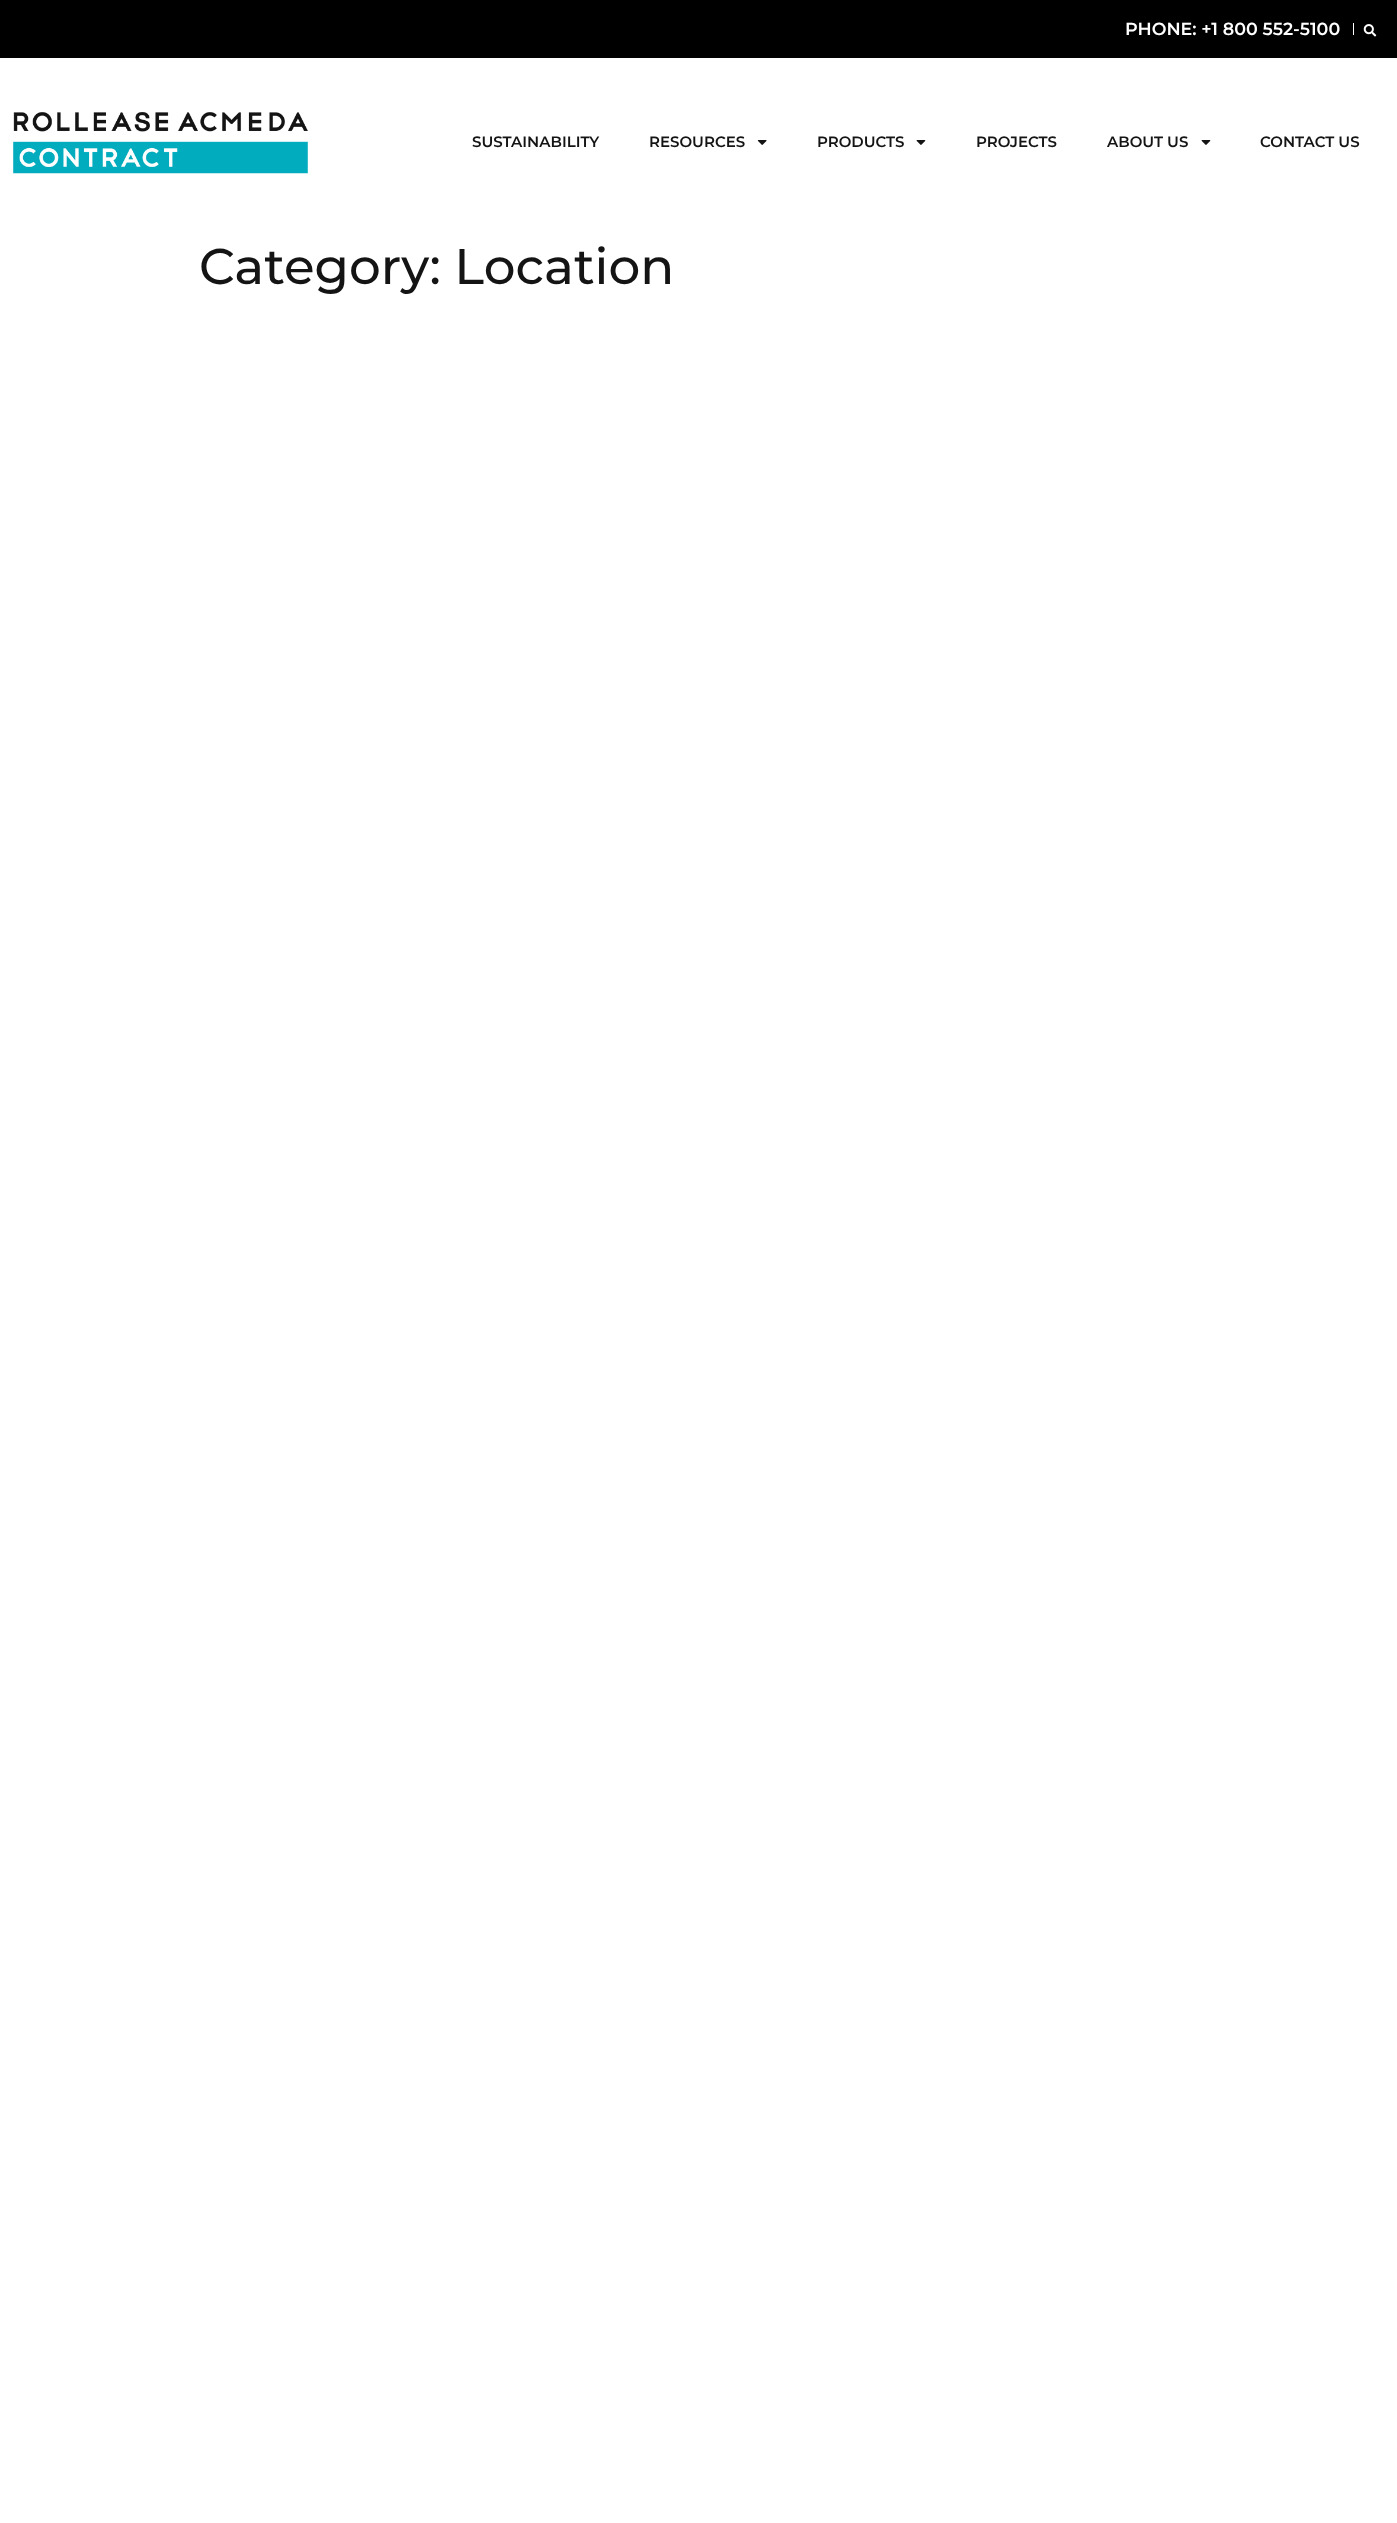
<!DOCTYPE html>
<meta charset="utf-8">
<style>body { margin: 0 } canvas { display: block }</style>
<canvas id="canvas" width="1397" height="2523"></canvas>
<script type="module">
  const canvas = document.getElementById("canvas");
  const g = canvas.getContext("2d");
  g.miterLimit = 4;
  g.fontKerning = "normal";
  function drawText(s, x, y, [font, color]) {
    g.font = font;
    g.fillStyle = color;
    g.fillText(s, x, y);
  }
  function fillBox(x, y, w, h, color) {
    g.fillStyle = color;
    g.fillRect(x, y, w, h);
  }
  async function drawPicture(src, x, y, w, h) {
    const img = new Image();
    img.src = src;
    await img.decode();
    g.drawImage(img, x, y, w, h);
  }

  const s1 = ["600 17.5px Montserrat", "#FFFFFF"];
  const s2 = ["600 15px Montserrat", "#141414"];
  const s3 = ["500 50px Montserrat", "#141414"];

  fillBox(0, 0, 1397, 2523, "#FFFFFF");
  fillBox(0, 0, 1397, 58, "#000000");
  drawText("PHONE: +1 800 552-5100", 1125, 35, s1);
  fillBox(1353, 23, 1, 12, "#FFFFFF");
  await drawPicture("pic1.png", 1363, 24, 14, 13);
  await drawPicture("pic2.png", 13, 112, 295, 62);
  drawText("SUSTAINABILITY", 472, 147, s2);
  drawText("RESOURCES", 649, 147, s2);
  await drawPicture("pic3.png", 757, 140, 10, 5);
  drawText("PRODUCTS", 817, 147, s2);
  await drawPicture("pic4.png", 916, 140, 10, 5);
  drawText("PROJECTS", 976, 147, s2);
  drawText("ABOUT US", 1107, 147, s2);
  await drawPicture("pic4.png", 1201, 140, 10, 5);
  drawText("CONTACT US", 1260, 147, s2);
  drawText("Category: Location", 199, 284, s3);
</script>
